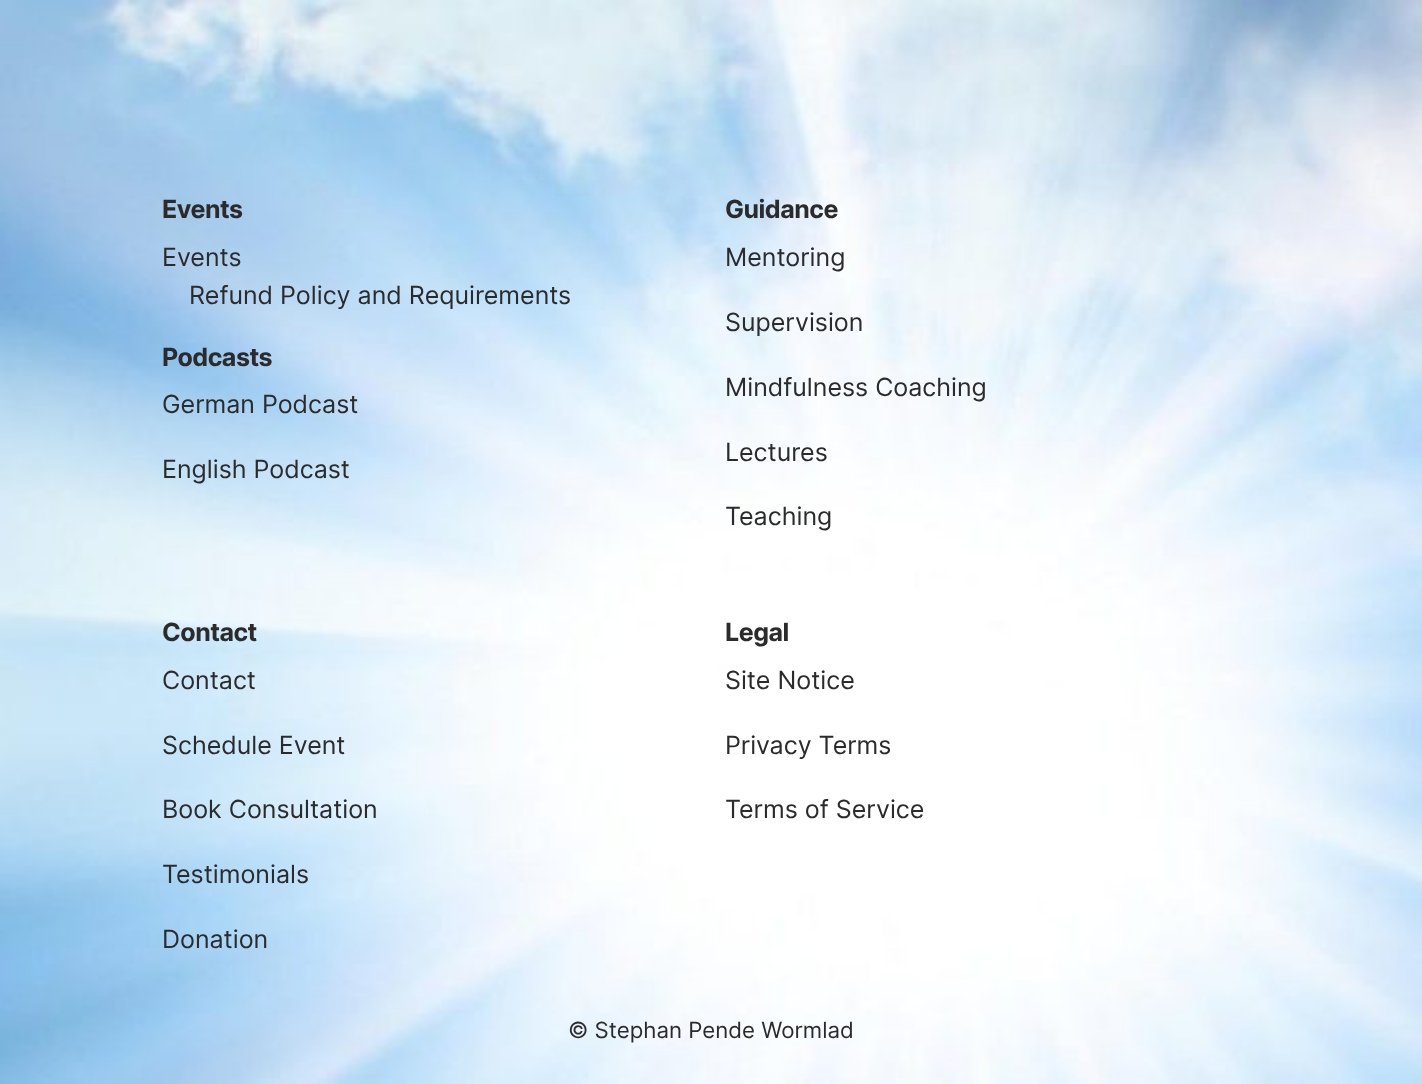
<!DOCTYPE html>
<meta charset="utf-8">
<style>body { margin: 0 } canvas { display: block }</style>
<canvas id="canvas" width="1422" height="1084"></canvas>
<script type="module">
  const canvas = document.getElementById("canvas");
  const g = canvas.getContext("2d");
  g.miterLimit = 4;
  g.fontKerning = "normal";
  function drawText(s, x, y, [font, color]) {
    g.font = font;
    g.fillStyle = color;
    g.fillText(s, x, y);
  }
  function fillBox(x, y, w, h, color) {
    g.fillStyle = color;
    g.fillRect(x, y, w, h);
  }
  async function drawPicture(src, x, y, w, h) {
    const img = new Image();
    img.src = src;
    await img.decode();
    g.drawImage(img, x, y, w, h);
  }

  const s1 = ["bold 25px Inter", "#2B2B2B"];
  const s2 = ["25px Inter", "#2B2B2B"];
  const s3 = ["22.25px Inter", "#2B2B2B"];

  fillBox(0, 0, 1422, 1084, "#FFFFFF");
  await drawPicture("pic1.png", 0, 0, 1422, 1084);
  g.letterSpacing = "-0.5px";
  drawText("Events", 162, 218, s1);
  g.letterSpacing = "0px";
  drawText("Events", 162, 266, s2);
  drawText("Refund Policy and Requirements", 189, 304, s2);
  g.letterSpacing = "-0.5px";
  drawText("Podcasts", 162, 366, s1);
  g.letterSpacing = "0px";
  drawText("German Podcast", 162, 413, s2);
  drawText("English Podcast", 162, 478, s2);
  g.letterSpacing = "-0.5px";
  drawText("Guidance", 725, 218, s1);
  g.letterSpacing = "0px";
  drawText("Mentoring", 725, 266, s2);
  drawText("Supervision", 725, 331, s2);
  drawText("Mindfulness Coaching", 725, 396, s2);
  drawText("Lectures", 725, 461, s2);
  drawText("Teaching", 725, 525, s2);
  g.letterSpacing = "-0.5px";
  drawText("Contact", 162, 641, s1);
  g.letterSpacing = "0px";
  drawText("Contact", 162, 689, s2);
  drawText("Schedule Event", 162, 754, s2);
  drawText("Book Consultation", 162, 818, s2);
  drawText("Testimonials", 162, 883, s2);
  drawText("Donation", 162, 948, s2);
  g.letterSpacing = "-0.5px";
  drawText("Legal", 725, 641, s1);
  g.letterSpacing = "0px";
  drawText("Site Notice", 725, 689, s2);
  drawText("Privacy Terms", 725, 754, s2);
  drawText("Terms of Service", 725, 818, s2);
  drawText("© Stephan Pende Wormlad", 568, 1038, s3);
</script>
